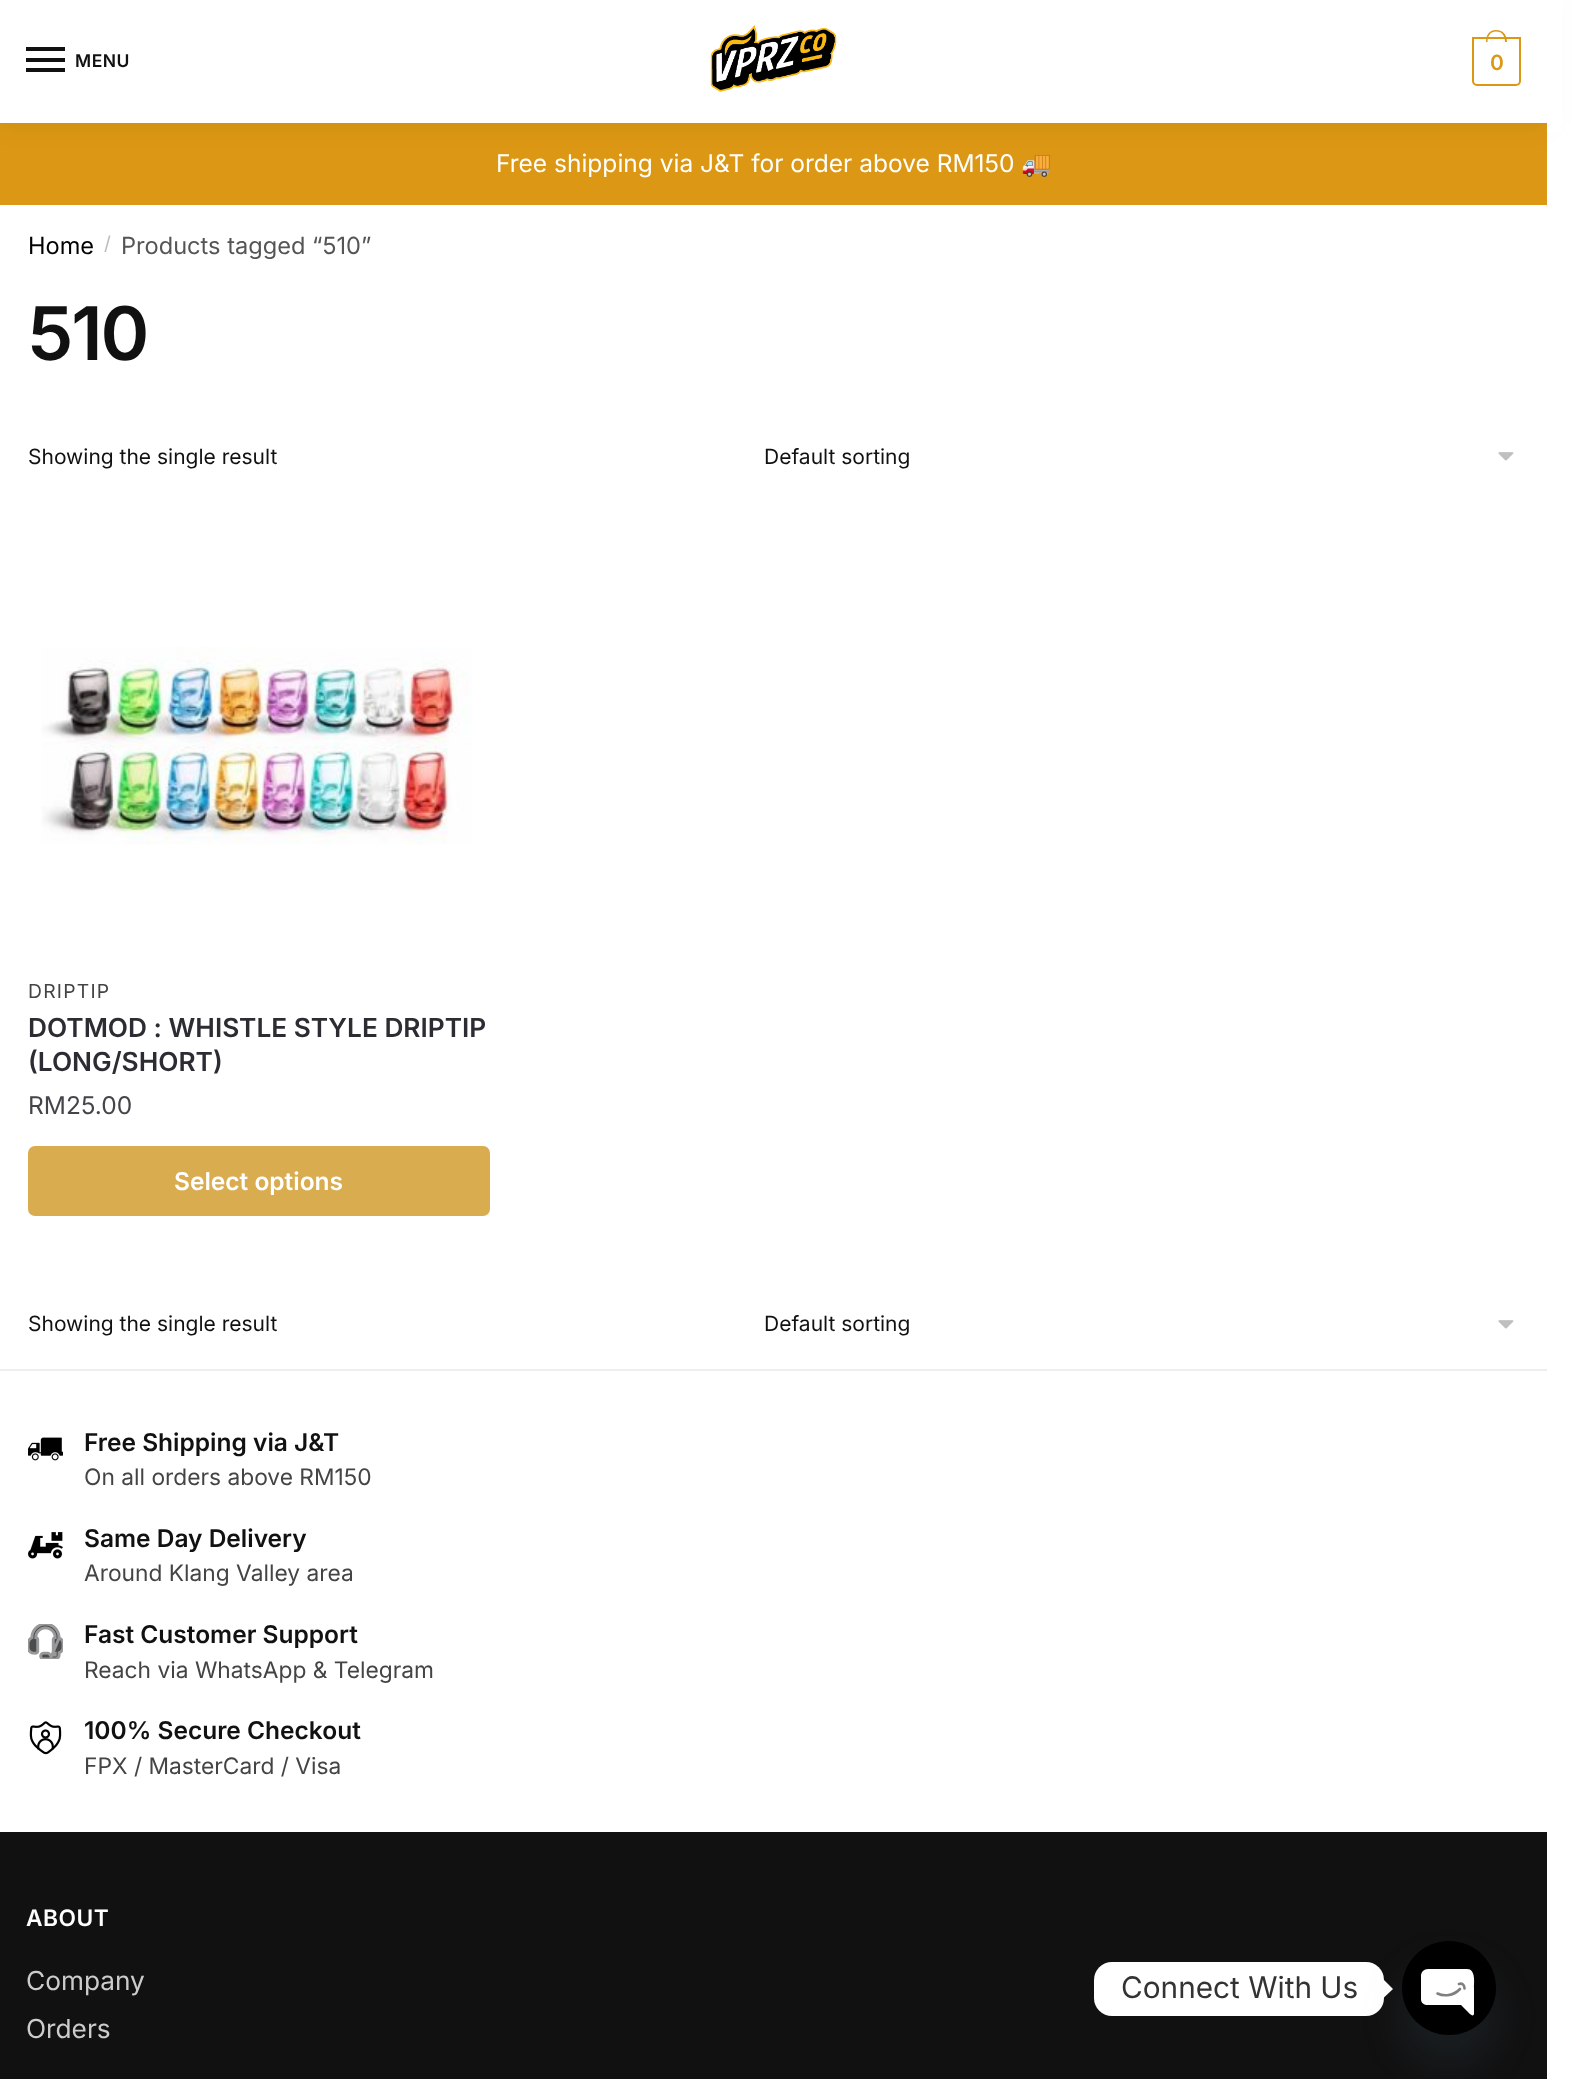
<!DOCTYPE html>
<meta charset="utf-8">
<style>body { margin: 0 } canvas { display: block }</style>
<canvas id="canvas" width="1573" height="2079"></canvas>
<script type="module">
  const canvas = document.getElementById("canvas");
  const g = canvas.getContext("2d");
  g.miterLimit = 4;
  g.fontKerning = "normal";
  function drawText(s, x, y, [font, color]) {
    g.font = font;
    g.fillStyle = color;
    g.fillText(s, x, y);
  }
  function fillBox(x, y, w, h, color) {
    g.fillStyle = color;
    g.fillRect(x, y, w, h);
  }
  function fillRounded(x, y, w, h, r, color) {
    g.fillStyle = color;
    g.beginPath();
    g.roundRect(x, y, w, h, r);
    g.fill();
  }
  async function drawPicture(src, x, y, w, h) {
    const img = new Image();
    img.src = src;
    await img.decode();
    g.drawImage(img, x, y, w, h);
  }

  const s1 = ["600 17.5px Inter", "#111111"];
  const s2 = ["600 21px Inter", "#DC9814"];
  const s3 = ["24.5px Inter", "#FFFFFF"];
  const s4 = ["24.5px Noto Color Emoji", "#FFFFFF"];
  const s5 = ["23.6px Inter", "#000000"];
  const s6 = ["19px Inter", "#BBBBBB"];
  const s7 = ["23.6px Inter", "#555555"];
  const s8 = ["600 74px Inter", "#111111"];
  const s9 = ["21px Inter", "#111111"];
  const s10 = ["19.25px Inter", "#444444"];
  const s11 = ["600 26.25px Inter", "#2C2D33"];
  const s12 = ["24.5px Inter", "#43454B"];
  const s13 = ["600 24.5px Inter", "#FFFFFF"];
  const s14 = ["600 24.5px Inter", "#111111"];
  const s15 = ["22.75px Inter", "#444444"];
  const s16 = ["600 22.75px Inter", "#FFFFFF"];
  const s17 = ["26.25px Inter", "#CCCCCC"];
  const s18 = ["29.75px Inter", "#333333"];

  fillBox(0, 0, 1573, 2079, "#FFFFFF");
  fillBox(0, 123, 1547, 82, "#DC9814");
  g.fillStyle = "rgba(0, 0, 0, 0.08)";
  g.filter = "blur(13px)";
  g.beginPath();
  g.rect(0, 2, 1547, 122);
  g.fill();
  g.filter = "none";
  fillBox(0, 0, 1547, 123, "#FFFFFF");
  fillBox(26, 47, 39, 4, "#111111");
  fillBox(26, 58, 39, 4, "#111111");
  g.letterSpacing = "0.5px";
  drawText("MENU", 75, 67, s1);
  fillBox(26, 68, 39, 4, "#111111");
  await drawPicture("pic1.png", 710, 25, 127, 67);
  g.beginPath();
  g.roundRect(1473, 38, 47, 47, [0, 0, 4, 4]);
  g.strokeStyle = "#DC9814";
  g.lineWidth = 2;
  g.stroke();
  g.fillStyle = "#DC9814";
  g.beginPath();
  g.moveTo(1496, 30);
  g.bezierCurveTo(1503.5, 30, 1507, 35.5, 1507, 42);
  g.lineTo(1486, 42);
  g.bezierCurveTo(1486, 35.5, 1489, 30, 1496, 30);
  g.closePath();
  g.moveTo(1496, 31.5);
  g.bezierCurveTo(1502.5, 31.5, 1505, 36.5, 1505, 42);
  g.lineTo(1487.5, 42);
  g.bezierCurveTo(1487.5, 36.5, 1490, 31.5, 1496, 31.5);
  g.closePath();
  g.fill("evenodd");
  g.letterSpacing = "-1px";
  drawText("0", 1490, 70, s2);
  fillBox(1547, 0, 15, 132, "#FFFFFF");
  g.letterSpacing = "0px";
  drawText("Free shipping via J&T for order above RM150", 496, 172, s3);
  drawText("🚚", 1021, 172, s4);
  drawText("Home", 28, 254, s5);
  drawText("/", 104, 250, s6);
  drawText("Products tagged “510”", 121, 254, s7);
  g.letterSpacing = "-2px";
  drawText("510", 28, 360, s8);
  g.letterSpacing = "0px";
  drawText("Showing the single result", 28, 464, s9);
  await drawPicture("pic2.png", 1498, 452, 16, 9);
  drawText("Default sorting", 764, 464, s9);
  await drawPicture("pic3.png", 41, 647, 431, 198);
  g.letterSpacing = "1.25px";
  drawText("DRIPTIP", 28, 998, s10);
  g.letterSpacing = "0px";
  drawText("DOTMOD : WHISTLE STYLE DRIPTIP", 28, 1037, s11);
  drawText("(LONG/SHORT)", 28, 1071, s11);
  drawText("RM", 28, 1114, s12);
  drawText("25.00", 66, 1114, s12);
  fillRounded(28, 1146, 462, 70, 7, "#DAAC50");
  drawText("Select options", 174, 1190, s13);
  drawText("Showing the single result", 28, 1331, s9);
  await drawPicture("pic2.png", 1498, 1320, 16, 9);
  drawText("Default sorting", 764, 1331, s9);
  fillBox(0, 1369, 1547, 2, "#EEEEEE");
  drawText("Free Shipping via J&T", 84, 1451, s14);
  await drawPicture("pic4.png", 28, 1437, 35, 24);
  drawText("On all orders above RM150", 84, 1485, s15);
  drawText("Same Day Delivery", 84, 1547, s14);
  await drawPicture("pic5.png", 28, 1532, 35, 27);
  drawText("Around Klang Valley area", 84, 1581, s15);
  drawText("Fast Customer Support", 84, 1643, s14);
  await drawPicture("pic6.png", 28, 1624, 35, 35);
  drawText("Reach via WhatsApp & Telegram", 84, 1678, s15);
  drawText("100% Secure Checkout", 84, 1739, s14);
  await drawPicture("pic7.png", 29, 1721, 33, 34);
  drawText("FPX / MasterCard / Visa", 84, 1774, s15);
  fillBox(0, 1832, 1547, 247, "#111111");
  g.letterSpacing = "0.5px";
  drawText("ABOUT", 26, 1926, s16);
  g.letterSpacing = "0px";
  drawText("Company", 26, 1990, s17);
  drawText("Orders", 26, 2038, s17);
  fillRounded(1094, 1962, 290, 54, 18, "#FFFFFF");
  drawText("Connect With Us", 1121, 1998, s18);
  g.fillStyle = "#FFFFFF";
  g.beginPath();
  g.moveTo(1384, 1997.5);
  g.lineTo(1384, 1980);
  g.lineTo(1393, 1989);
  g.closePath();
  g.fill();
  g.fillStyle = "rgba(73, 104, 126, 0.16)";
  g.filter = "blur(21px)";
  g.beginPath();
  g.roundRect(1402, 1969, 94, 94, 47);
  g.fill();
  g.filter = "none";
  g.fillStyle = "#000000";
  g.beginPath();
  g.arc(1449, 1988, 47, 0, Math.PI * 2);
  g.fill();
  g.fillStyle = "#FFFFFF";
  g.beginPath();
  g.moveTo(1467, 1969);
  g.lineTo(1428, 1969);
  g.bezierCurveTo(1424, 1969, 1421, 1972, 1421, 1976);
  g.lineTo(1421, 1999);
  g.bezierCurveTo(1421, 2003, 1424, 2005, 1428, 2005);
  g.lineTo(1461, 2005);
  g.lineTo(1468, 2012);
  g.bezierCurveTo(1468, 2012, 1473, 2018, 1474, 2014);
  g.lineTo(1474, 1988);
  g.bezierCurveTo(1474, 1983, 1476, 1969, 1467, 1969);
  g.closePath();
  g.fill();
  g.beginPath();
  g.moveTo(1437.5, 1993.5);
  g.bezierCurveTo(1441.5, 1995.5, 1452, 1997.5, 1460, 1989);
  g.moveTo(1464.5, 1988.5);
  g.bezierCurveTo(1464.5, 1986.5, 1463.5, 1982.5, 1459, 1984);
  g.strokeStyle = "#808080";
  g.lineWidth = 2.6;
  g.lineCap = "round";
  g.lineJoin = "round";
  g.stroke();
</script>
